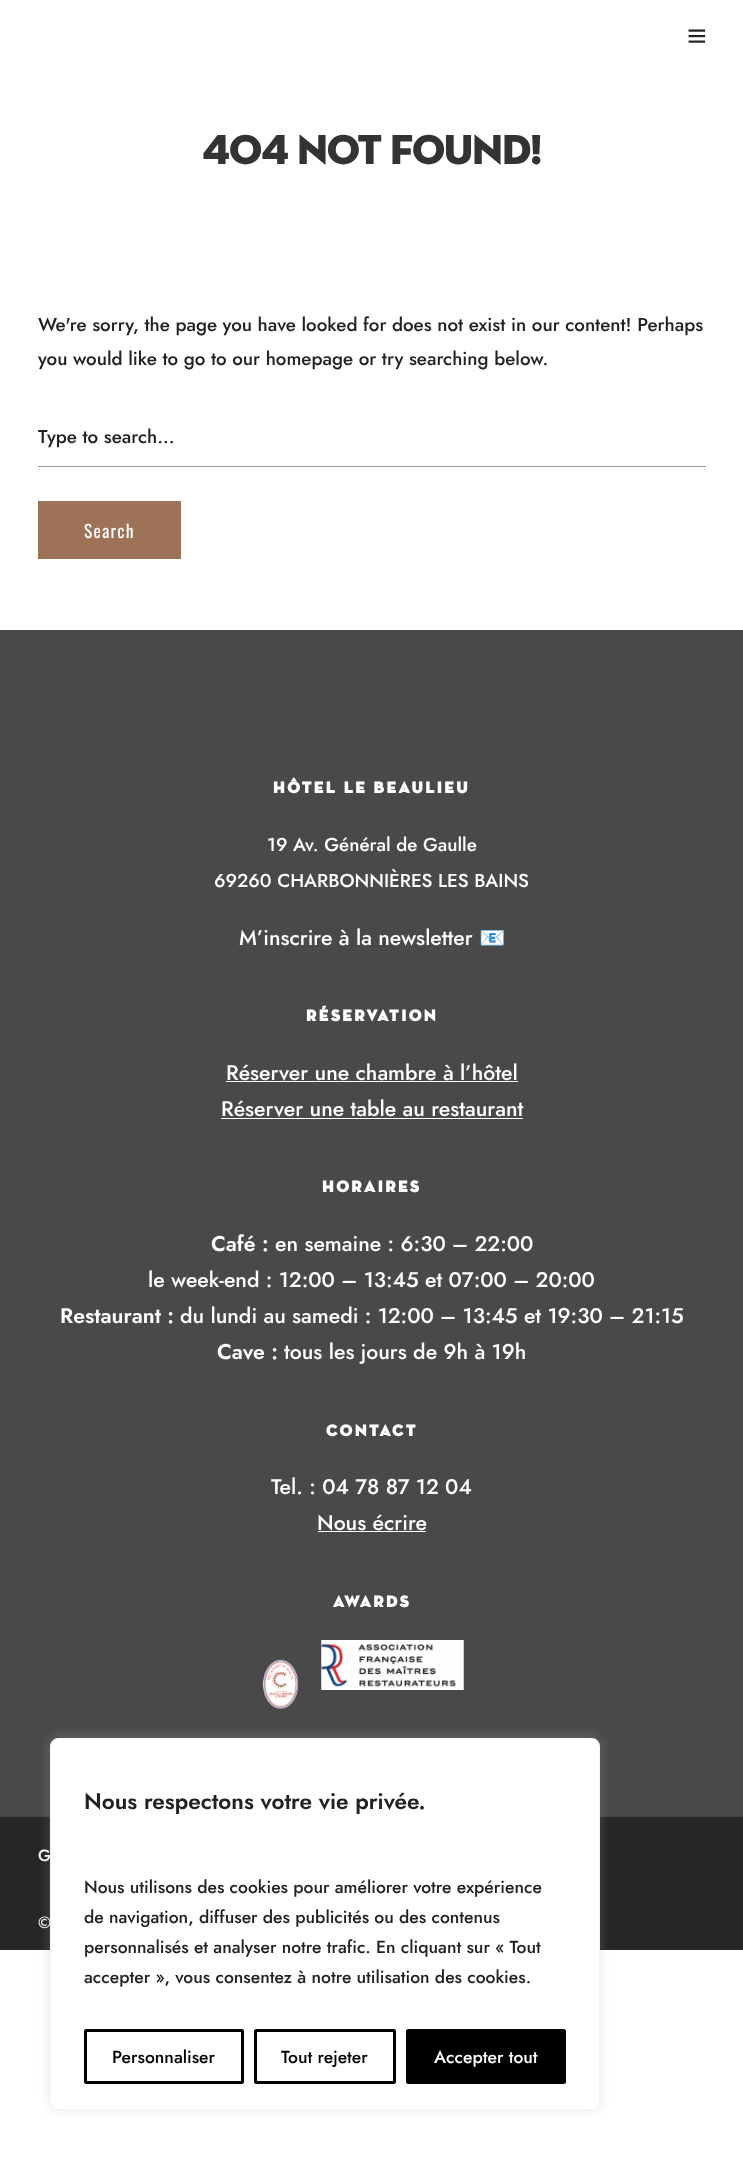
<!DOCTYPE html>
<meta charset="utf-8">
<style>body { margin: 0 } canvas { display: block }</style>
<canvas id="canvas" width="743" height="2160"></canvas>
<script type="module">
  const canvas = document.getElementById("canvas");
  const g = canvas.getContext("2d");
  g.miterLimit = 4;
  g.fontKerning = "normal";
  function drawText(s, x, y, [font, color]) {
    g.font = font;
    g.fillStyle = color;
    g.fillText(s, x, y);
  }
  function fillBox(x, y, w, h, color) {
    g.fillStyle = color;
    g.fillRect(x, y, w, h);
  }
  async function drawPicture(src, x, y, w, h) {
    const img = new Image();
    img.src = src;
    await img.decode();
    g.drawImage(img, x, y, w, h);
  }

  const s1 = ["42.5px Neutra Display", "#333333"];
  const s2 = ["500 18.75px Jost", "#222222"];
  const s3 = ["17.5px Oswald", "#FFFFFF"];
  const s4 = ["bold 16.25px Neutra Display", "#FFFFFF"];
  const s5 = ["500 18.75px Jost", "#FFFFFF"];
  const s6 = ["500 21.25px Jost", "#FFFFFF"];
  const s7 = ["21.25px Noto Color Emoji", "#FFFFFF"];
  const s8 = ["600 21.25px Jost", "#FFFFFF"];
  const s9 = ["500 16.25px Jost", "#FFFFFF"];
  const s10 = ["600 22.5px Jost", "#222222"];
  const s11 = ["500 17.5px Jost", "#222222"];
  const s12 = ["500 17.5px Jost", "#000000"];
  const s13 = ["500 17.5px Jost", "#FFFFFF"];

  fillBox(0, 0, 743, 2160, "#FFFFFF");
  await drawPicture("pic1.png", 688, 29, 18, 14);
  g.letterSpacing = "-1.25px";
  drawText("404 Not Found!", 202, 164, s1);
  g.letterSpacing = "0px";
  drawText("We're sorry, the page you have looked for does not exist in our content! Perhaps", 38, 331, s2);
  drawText("you would like to go to our homepage or try searching below.", 38, 365, s2);
  fillBox(38, 466, 668, 1, "#999999");
  drawText("Type to search...", 38, 443, s2);
  fillBox(38, 501, 143, 58, "#9E7256");
  g.letterSpacing = "1.25px";
  drawText("Search", 84, 538, s3);
  fillBox(0, 630, 743, 1186, "#494949");
  g.letterSpacing = "2.5px";
  drawText("HÔTEL LE BEAULIEU", 273, 793, s4);
  g.letterSpacing = "0px";
  drawText("19 Av. Général de Gaulle", 267, 851, s5);
  drawText("69260 CHARBONNIÈRES LES BAINS", 214, 887, s5);
  drawText("M’inscrire à la newsletter", 239, 945, s6);
  drawText("📧", 479, 945, s7);
  g.letterSpacing = "2.5px";
  drawText("RÉSERVATION", 306, 1021, s4);
  g.letterSpacing = "0px";
  drawText("Réserver une chambre à l’hôtel", 226, 1080, s6);
  fillBox(226, 1081, 292, 1, "#FFFFFF");
  drawText("Réserver une table au restaurant", 221, 1116, s6);
  fillBox(221, 1118, 302, 1, "#FFFFFF");
  g.letterSpacing = "2.5px";
  drawText("HORAIRES", 322, 1192, s4);
  g.letterSpacing = "0px";
  drawText("Café :", 211, 1251, s8);
  drawText("en semaine : 6:30 – 22:00", 275, 1251, s6);
  drawText("le week-end : 12:00 – 13:45 et 07:00 – 20:00", 148, 1287, s6);
  drawText("Restaurant :", 60, 1323, s8);
  drawText("du lundi au samedi : 12:00 – 13:45 et 19:30 – 21:15", 180, 1323, s6);
  drawText("Cave :", 217, 1359, s8);
  drawText("tous les jours de 9h à 19h", 284, 1359, s6);
  g.letterSpacing = "2.5px";
  drawText("CONTACT", 326, 1436, s4);
  g.letterSpacing = "0px";
  drawText("Tel. : 04 78 87 12 04", 271, 1494, s6);
  drawText("Nous écrire", 317, 1530, s6);
  fillBox(318, 1531, 108, 1, "#FFFFFF");
  g.letterSpacing = "2.5px";
  drawText("AWARDS", 333, 1607, s4);
  await drawPicture("pic2.png", 262, 1659, 37, 50);
  await drawPicture("pic3.png", 321, 1640, 143, 50);
  fillBox(0, 1817, 743, 133, "#262626");
  fillBox(0, 1816, 743, 1, "#444444");
  g.letterSpacing = "0px";
  drawText("G", 38, 1861, s9);
  drawText("©", 38, 1928, s9);
  g.fillStyle = "rgba(172, 171, 171, 0.3)";
  g.filter = "blur(6px)";
  g.beginPath();
  g.roundRect(50, 1736, 550, 373, 8);
  g.fill();
  g.filter = "none";
  g.fillStyle = "#FFFFFF";
  g.beginPath();
  g.roundRect(50.5, 1738.5, 549, 371, 7.5);
  g.fill();
  g.strokeStyle = "#F4F4F4";
  g.stroke();
  drawText("Nous respectons votre vie privée.", 84, 1809, s10);
  drawText("Nous utilisons des cookies pour améliorer votre expérience", 84, 1893, s11);
  drawText("de navigation, diffuser des publicités ou des contenus", 84, 1923, s11);
  drawText("personnalisés et analyser notre trafic. En cliquant sur « Tout", 84, 1953, s11);
  drawText("accepter », vous consentez à notre utilisation des cookies.", 84, 1983, s11);
  g.beginPath();
  g.roundRect(85.5, 2030.5, 157, 52, 1);
  g.strokeStyle = "#000000";
  g.lineWidth = 3;
  g.stroke();
  drawText("Personnaliser", 112, 2063, s12);
  g.beginPath();
  g.roundRect(255.5, 2030.5, 139, 52, 1);
  g.stroke();
  drawText("Tout rejeter", 281, 2063, s12);
  g.beginPath();
  g.roundRect(407.5, 2030.5, 157, 52, 1);
  g.fill();
  g.stroke();
  drawText("Accepter tout", 434, 2063, s13);
</script>
